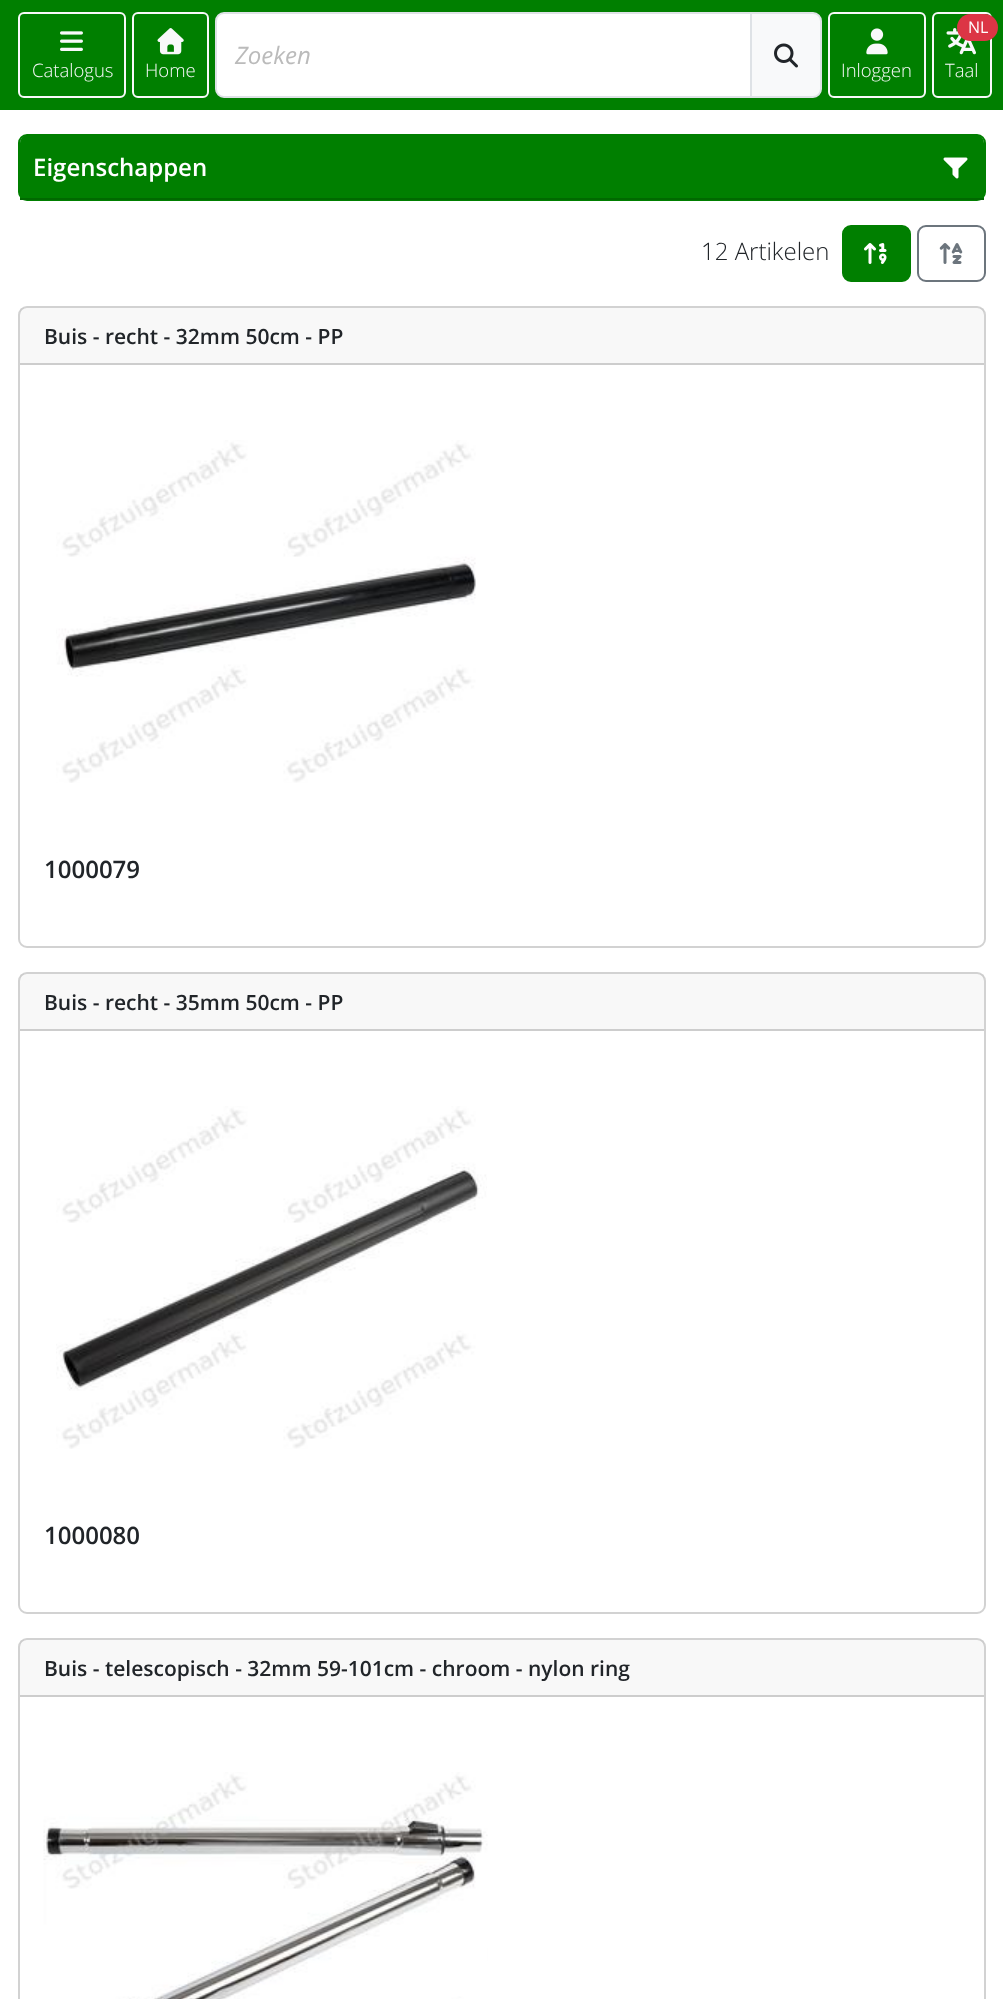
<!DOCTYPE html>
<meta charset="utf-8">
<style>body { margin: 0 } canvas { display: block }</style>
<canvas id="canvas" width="1003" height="1999"></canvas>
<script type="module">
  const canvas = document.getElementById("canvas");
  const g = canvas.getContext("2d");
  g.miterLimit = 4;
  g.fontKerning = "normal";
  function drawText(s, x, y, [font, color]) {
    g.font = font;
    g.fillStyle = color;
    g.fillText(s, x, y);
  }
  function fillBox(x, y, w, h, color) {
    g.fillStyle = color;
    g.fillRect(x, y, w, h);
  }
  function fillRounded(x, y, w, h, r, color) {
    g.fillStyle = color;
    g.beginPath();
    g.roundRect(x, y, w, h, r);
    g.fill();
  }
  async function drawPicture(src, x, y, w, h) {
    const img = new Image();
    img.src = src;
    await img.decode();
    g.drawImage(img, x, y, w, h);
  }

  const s1 = ["italic 24px Open Sans", "#BBBBBB"];
  const s2 = ["16px Open Sans", "#FFFFFF"];
  const s3 = ["300 18.5px Open Sans", "#F8F9FA"];
  const s4 = ["600 24px Open Sans", "#FFFFFF"];
  const s5 = ["300 24px Open Sans", "#212529"];
  const s6 = ["600 21px Open Sans", "#212529"];
  const s7 = ["600 24px Open Sans", "#212529"];

  fillBox(0, 0, 1003, 1999, "#FFFFFF");
  fillBox(0, 0, 1003, 110, "#007F00");
  g.fillStyle = "#F8F9FA";
  g.beginPath();
  g.roundRect(751, 13, 70, 84, [0, 8, 8, 0]);
  g.fill();
  g.strokeStyle = "#DEE2E6";
  g.lineWidth = 2;
  g.stroke();
  g.fillStyle = "#FFFFFF";
  g.beginPath();
  g.roundRect(216, 13, 535, 84, [8, 0, 0, 8]);
  g.fill();
  g.stroke();
  drawText("Zoeken", 235, 64, s1);
  await drawPicture("pic1.png", 774, 43, 24, 25);
  g.beginPath();
  g.roundRect(933, 13, 58, 84, 5);
  g.strokeStyle = "#F8F9FA";
  g.stroke();
  await drawPicture("pic2.png", 946, 28, 30, 27);
  fillRounded(957, 14, 41, 27, 13.5, "#DC3545");
  drawText("NL", 968, 33, s2);
  drawText("Taal", 945, 77, s3);
  g.beginPath();
  g.roundRect(19, 13, 106, 84, 5);
  g.stroke();
  await drawPicture("pic3.png", 60, 31, 23, 20);
  drawText("Catalogus", 32, 77, s3);
  g.beginPath();
  g.roundRect(133, 13, 75, 84, 5);
  g.stroke();
  await drawPicture("pic4.png", 157, 28, 27, 27);
  drawText("Home", 145, 77, s3);
  g.beginPath();
  g.roundRect(829, 13, 96, 84, 5);
  g.stroke();
  await drawPicture("pic5.png", 866, 28, 22, 27);
  drawText("Inloggen", 841, 77, s3);
  g.beginPath();
  g.roundRect(19, 135, 966, 65, 8);
  g.strokeStyle = "#007F00";
  g.stroke();
  g.fillStyle = "#007F00";
  g.beginPath();
  g.roundRect(20, 135, 964, 65, [8, 8, 0, 0]);
  g.fill();
  fillBox(20, 198, 964, 2, "#006900");
  drawText("Eigenschappen", 33, 176, s4);
  await drawPicture("pic6.png", 943, 157, 25, 22);
  drawText("12 Artikelen", 701, 260, s5);
  g.fillStyle = "#007F00";
  g.beginPath();
  g.roundRect(843, 226, 67, 55, 8);
  g.fill();
  g.stroke();
  await drawPicture("pic7.png", 864, 243, 23, 21);
  g.beginPath();
  g.roundRect(918, 226, 67, 55, 8);
  g.strokeStyle = "#6C757D";
  g.stroke();
  await drawPicture("pic8.png", 939, 243, 24, 21);
  g.beginPath();
  g.roundRect(19, 307, 966, 640, 8);
  g.strokeStyle = "#D2D2D2";
  g.stroke();
  fillBox(20, 308, 964, 55, "rgba(33, 37, 41, 0.03)");
  fillBox(20, 363, 964, 2, "#CDCDCD");
  drawText("Buis - recht - 32mm 50cm - PP", 44, 344, s6);
  await drawPicture("pic9.png", 56, 440, 420, 343);
  drawText("1000079", 44, 878, s7);
  g.beginPath();
  g.roundRect(19, 973, 966, 640, 8);
  g.stroke();
  fillBox(20, 974, 964, 55, "rgba(33, 37, 41, 0.03)");
  fillBox(20, 1029, 964, 2, "#CDCDCD");
  drawText("Buis - recht - 35mm 50cm - PP", 44, 1010, s6);
  await drawPicture("pic10.png", 56, 1106, 431, 343);
  drawText("1000080", 44, 1544, s7);
  g.beginPath();
  g.roundRect(19, 1639, 966, 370, 8);
  g.stroke();
  fillBox(20, 1640, 964, 55, "rgba(33, 37, 41, 0.03)");
  fillBox(20, 1695, 964, 2, "#CDCDCD");
  drawText("Buis - telescopisch - 32mm 59-101cm - chroom - nylon ring", 44, 1676, s6);
  await drawPicture("pic11.png", 43, 1772, 445, 227);
</script>
